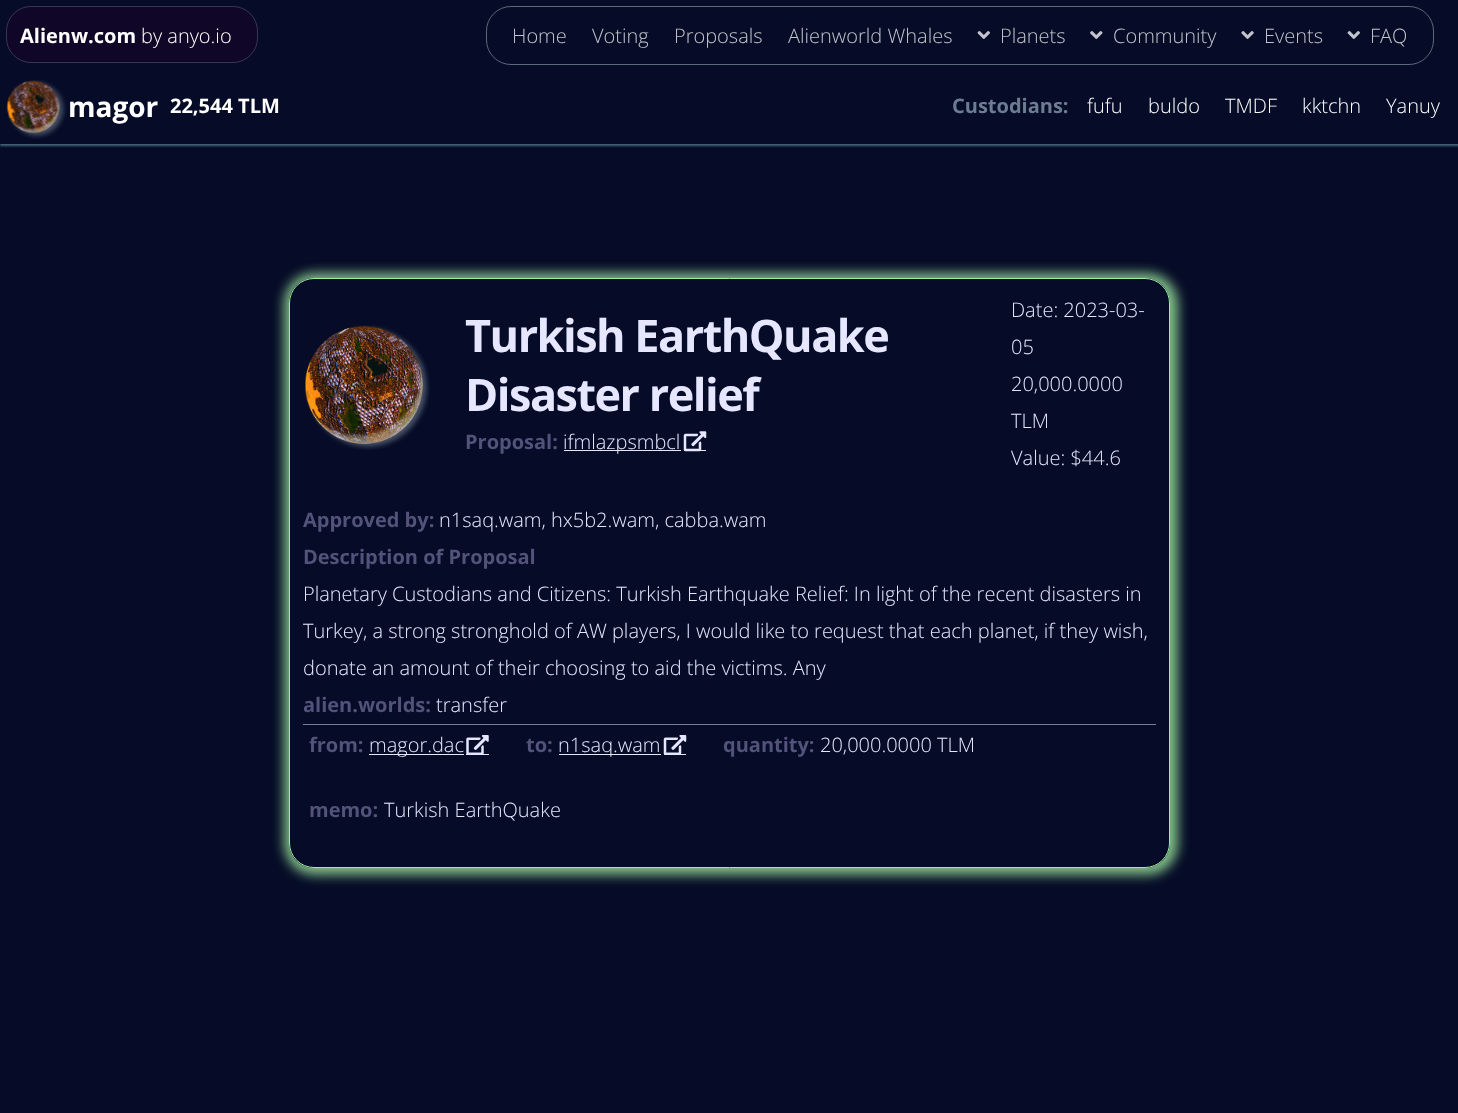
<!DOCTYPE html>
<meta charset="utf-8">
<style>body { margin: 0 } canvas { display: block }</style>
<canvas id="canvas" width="1458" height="1113"></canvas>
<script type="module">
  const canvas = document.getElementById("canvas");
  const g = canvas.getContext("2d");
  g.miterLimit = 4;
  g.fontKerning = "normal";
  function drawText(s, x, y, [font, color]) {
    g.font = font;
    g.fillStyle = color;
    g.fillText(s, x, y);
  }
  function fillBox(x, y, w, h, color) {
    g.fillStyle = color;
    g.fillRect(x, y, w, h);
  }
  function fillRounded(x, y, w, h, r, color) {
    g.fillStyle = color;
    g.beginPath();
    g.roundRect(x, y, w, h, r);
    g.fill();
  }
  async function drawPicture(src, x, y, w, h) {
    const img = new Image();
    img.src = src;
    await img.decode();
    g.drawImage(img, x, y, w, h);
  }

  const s1 = ["bold 20px Open Sans", "#FFFFFF"];
  const s2 = ["300 20px Open Sans", "#FFFFFF"];
  const s3 = ["300 20px Open Sans", "#C1C5CB"];
  const s4 = ["bold 28px Open Sans", "#FFFFFF"];
  const s5 = ["bold 20px Open Sans", "#6B7C93"];
  const s6 = ["bold 45px Open Sans", "#E6E6FF"];
  const s7 = ["bold 20px Open Sans", "#52527A"];
  const s8 = ["300 20px Open Sans", "#E6E6FF"];

  fillBox(0, 0, 1458, 1113, "#060C27");
  g.save();
  g.beginPath();
  g.rect(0, 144, 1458, 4);
  g.clip();
  g.fillStyle = "rgba(165, 236, 248, 0.4)";
  g.filter = "blur(1px)";
  g.beginPath();
  g.rect(0, 0, 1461, 146);
  g.fill();
  g.filter = "none";
  g.restore();
  fillRounded(6, 6, 252, 57, 25, "#100627");
  g.beginPath();
  g.roundRect(6.5, 6.5, 251, 56, 24.5);
  g.strokeStyle = "rgba(221, 244, 248, 0.2)";
  g.stroke();
  drawText("Alienw.com", 20, 43, s1);
  drawText("by anyo.io", 141, 43, s2);
  g.beginPath();
  g.roundRect(486.5, 6.5, 947, 58, 24.5);
  g.strokeStyle = "#5C697B";
  g.stroke();
  drawText("Home", 512, 43, s3);
  drawText("Voting", 592, 43, s3);
  drawText("Proposals", 674, 43, s3);
  drawText("Alienworld Whales", 788, 43, s3);
  await drawPicture("pic1.png", 977, 31, 13, 8);
  drawText("Planets", 1000, 43, s3);
  await drawPicture("pic2.png", 1090, 31, 13, 8);
  drawText("Community", 1113, 43, s3);
  await drawPicture("pic3.png", 1241, 31, 13, 8);
  drawText("Events", 1264, 43, s3);
  await drawPicture("pic1.png", 1347, 31, 13, 8);
  drawText("FAQ", 1370, 43, s3);
  fillBox(0, 143, 1458, 1, "#060C27");
  await drawPicture("pic4.png", 6, 80, 61, 59);
  drawText("magor", 68, 117, s4);
  drawText("22,544 TLM", 170, 113, s1);
  drawText("Custodians:", 952, 113, s5);
  drawText("fufu", 1087, 113, s2);
  drawText("buldo", 1148, 113, s2);
  drawText("TMDF", 1225, 113, s2);
  drawText("kktchn", 1302, 113, s2);
  drawText("Yanuy", 1386, 113, s2);
  g.save();
  g.beginPath();
  g.moveTo(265, 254);
  g.lineTo(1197, 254);
  g.lineTo(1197, 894);
  g.lineTo(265, 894);
  g.closePath();
  g.moveTo(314, 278);
  g.lineTo(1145, 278);
  g.bezierCurveTo(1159, 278, 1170, 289, 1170, 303);
  g.lineTo(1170, 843);
  g.bezierCurveTo(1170, 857, 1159, 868, 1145, 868);
  g.lineTo(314, 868);
  g.bezierCurveTo(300, 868, 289, 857, 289, 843);
  g.lineTo(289, 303);
  g.bezierCurveTo(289, 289, 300, 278, 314, 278);
  g.closePath();
  g.clip("evenodd");
  g.fillStyle = "rgba(160, 235, 160, 0.8)";
  g.filter = "blur(6px)";
  g.beginPath();
  g.roundRect(284, 273, 894, 602, 31);
  g.fill();
  g.filter = "none";
  g.restore();
  g.beginPath();
  g.roundRect(289.5, 278.5, 880, 589, 24.5);
  g.strokeStyle = "#A0EBA0";
  g.stroke();
  await drawPicture("pic5.png", 305, 325, 125, 125);
  g.letterSpacing = "-1.5px";
  drawText("Turkish EarthQuake", 465, 352, s6);
  drawText("Disaster relief", 465, 411, s6);
  g.letterSpacing = "0px";
  drawText("Proposal:", 465, 449, s7);
  fillBox(564, 450, 117, 1, "#E6E6FF");
  drawText("ifmlazpsmbcl", 563, 449, s8);
  fillBox(684, 450, 22, 1, "#E6E6FF");
  await drawPicture("pic6.png", 683, 431, 24, 21);
  drawText("Date: 2023-03-", 1011, 317, s8);
  drawText("05", 1011, 354, s8);
  drawText("20,000.0000", 1011, 391, s8);
  drawText("TLM", 1011, 428, s8);
  drawText("Value: $44.6", 1011, 465, s8);
  drawText("Approved by:", 303, 527, s7);
  drawText("n1saq.wam, hx5b2.wam, cabba.wam", 439, 527, s8);
  drawText("Description of Proposal", 303, 564, s7);
  drawText("Planetary Custodians and Citizens: Turkish Earthquake Relief: In light of the recent disasters in", 303, 601, s8);
  drawText("Turkey, a strong stronghold of AW players, I would like to request that each planet, if they wish,", 303, 638, s8);
  drawText("donate an amount of their choosing to aid the victims. Any", 303, 675, s8);
  drawText("alien.worlds:", 303, 712, s7);
  drawText("transfer", 436, 712, s8);
  fillBox(303, 724, 853, 1, "#728090");
  drawText("from:", 309, 752, s7);
  fillBox(369, 754, 95, 1, "#E6E6FF");
  drawText("magor.dac", 369, 752, s8);
  fillBox(466, 754, 23, 1, "#E6E6FF");
  await drawPicture("pic7.png", 466, 735, 23, 19);
  drawText("to:", 526, 752, s7);
  fillBox(559, 754, 102, 1, "#E6E6FF");
  drawText("n1saq.wam", 558, 752, s8);
  fillBox(664, 754, 22, 1, "#E6E6FF");
  await drawPicture("pic8.png", 663, 735, 24, 19);
  drawText("quantity:", 723, 752, s7);
  drawText("20,000.0000 TLM", 820, 752, s8);
  drawText("memo:", 309, 817, s7);
  drawText("Turkish EarthQuake", 384, 817, s8);
</script>
